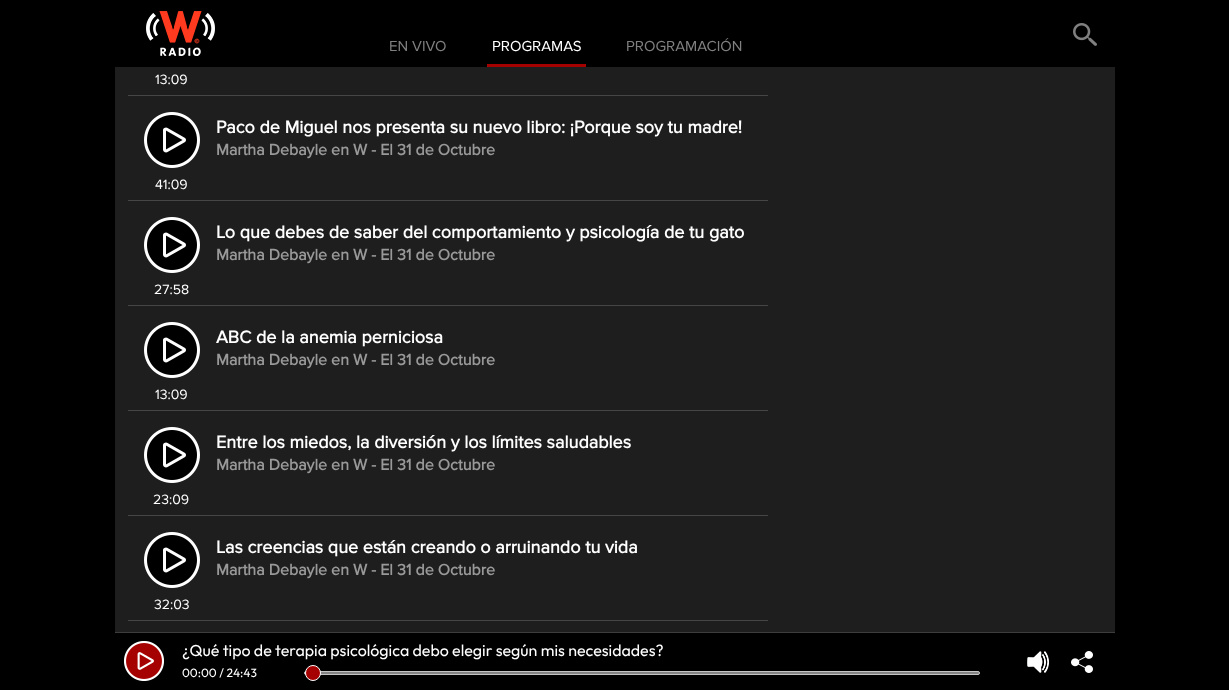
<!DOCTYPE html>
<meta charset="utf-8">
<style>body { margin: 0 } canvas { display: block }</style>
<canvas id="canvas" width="1229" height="690"></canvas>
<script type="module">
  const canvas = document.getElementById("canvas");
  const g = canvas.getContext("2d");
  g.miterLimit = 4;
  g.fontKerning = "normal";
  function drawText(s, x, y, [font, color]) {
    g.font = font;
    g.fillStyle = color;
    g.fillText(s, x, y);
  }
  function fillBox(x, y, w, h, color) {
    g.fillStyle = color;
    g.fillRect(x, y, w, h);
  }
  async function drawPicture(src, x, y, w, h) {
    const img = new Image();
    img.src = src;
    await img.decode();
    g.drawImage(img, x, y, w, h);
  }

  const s1 = ["15px Proxima Nova", "#808080"];
  const s2 = ["15px Proxima Nova", "#FFFFFF"];
  const s3 = ["14px Proxima Nova", "#FFFFFF"];
  const s4 = ["bold 18px Proxima Nova", "#FFFFFF"];
  const s5 = ["bold 16px Proxima Nova", "#999999"];
  const s6 = ["16px Outfit", "#FFFFFF"];
  const s7 = ["12px Outfit", "#FFFFFF"];

  fillBox(0, 0, 1229, 690, "#000000");
  await drawPicture("pic1.png", 146, 11, 69, 45);
  drawText("EN VIVO", 389, 51, s1);
  fillBox(487, 64, 99, 3, "#A60101");
  drawText("PROGRAMAS", 492, 51, s2);
  drawText("PROGRAMACIÓN", 626, 51, s1);
  await drawPicture("pic2.png", 1073, 23, 24, 23);
  fillBox(115, 67, 1000, 565, "#1E1E1E");
  drawText("13:09", 155, 84, s3);
  fillBox(128, 95, 640, 1, "#464646");
  drawText("Paco de Miguel nos presenta su nuevo libro: ¡Porque soy tu madre!", 216, 133, s4);
  drawText("Martha Debayle en W - El 31 de Octubre", 216, 155, s5);
  await drawPicture("pic3.png", 144, 112, 56, 56);
  drawText("41:09", 155, 189, s3);
  fillBox(128, 200, 640, 1, "#464646");
  drawText("Lo que debes de saber del comportamiento y psicología de tu gato", 216, 238, s4);
  drawText("Martha Debayle en W - El 31 de Octubre", 216, 260, s5);
  await drawPicture("pic3.png", 144, 217, 56, 56);
  drawText("27:58", 154, 294, s3);
  fillBox(128, 305, 640, 1, "#464646");
  drawText("ABC de la anemia perniciosa", 216, 343, s4);
  drawText("Martha Debayle en W - El 31 de Octubre", 216, 365, s5);
  await drawPicture("pic3.png", 144, 322, 56, 56);
  drawText("13:09", 155, 399, s3);
  fillBox(128, 410, 640, 1, "#464646");
  drawText("Entre los miedos, la diversión y los límites saludables", 216, 448, s4);
  drawText("Martha Debayle en W - El 31 de Octubre", 216, 470, s5);
  await drawPicture("pic3.png", 144, 427, 56, 56);
  drawText("23:09", 153, 504, s3);
  fillBox(128, 515, 640, 1, "#464646");
  drawText("Las creencias que están creando o arruinando tu vida", 216, 553, s4);
  drawText("Martha Debayle en W - El 31 de Octubre", 216, 575, s5);
  await drawPicture("pic3.png", 144, 532, 56, 56);
  drawText("32:03", 154, 609, s3);
  fillBox(128, 620, 640, 1, "#464646");
  fillBox(115, 632, 1000, 1, "#3D3D3D");
  await drawPicture("pic4.png", 124, 641, 40, 40);
  drawText("¿Qué tipo de terapia psicológica debo elegir según mis necesidades?", 182, 656, s6);
  drawText("00:00 / 24:43", 182, 677, s7);
  g.fillStyle = "#848484";
  g.beginPath();
  g.roundRect(304.5, 671.5, 675, 3, 1.5);
  g.fill();
  g.strokeStyle = "#C5C5C5";
  g.stroke();
  g.fillStyle = "#A60101";
  g.beginPath();
  g.arc(313, 673, 7.5, 0, Math.PI * 2);
  g.fill();
  g.strokeStyle = "#FFFFFF";
  g.stroke();
  await drawPicture("pic5.png", 1027, 651, 22, 22);
  await drawPicture("pic6.png", 1071, 651, 22, 22);
</script>
